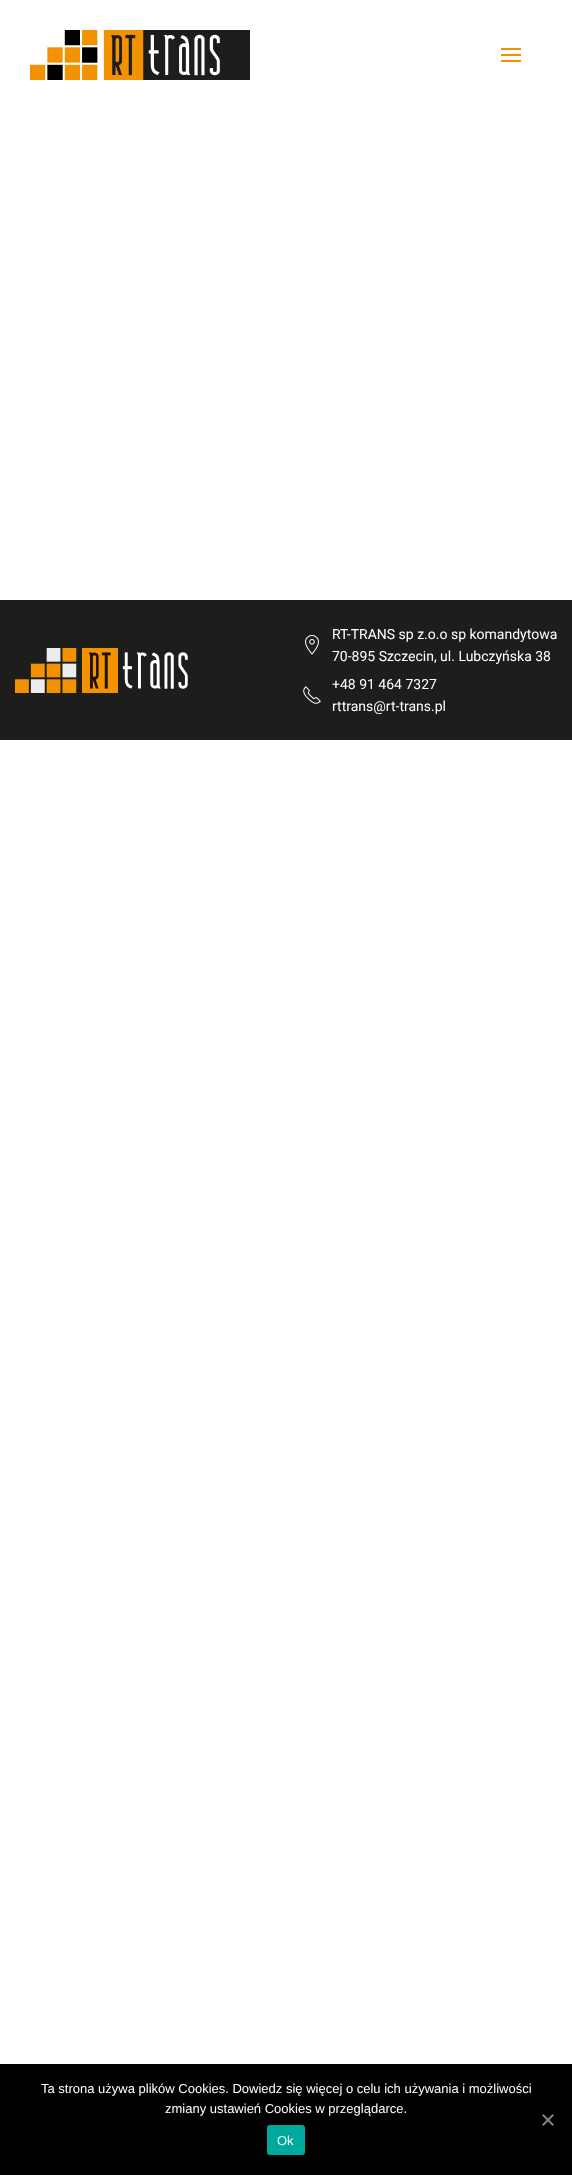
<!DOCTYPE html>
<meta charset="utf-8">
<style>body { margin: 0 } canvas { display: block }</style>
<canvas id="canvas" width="572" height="2175"></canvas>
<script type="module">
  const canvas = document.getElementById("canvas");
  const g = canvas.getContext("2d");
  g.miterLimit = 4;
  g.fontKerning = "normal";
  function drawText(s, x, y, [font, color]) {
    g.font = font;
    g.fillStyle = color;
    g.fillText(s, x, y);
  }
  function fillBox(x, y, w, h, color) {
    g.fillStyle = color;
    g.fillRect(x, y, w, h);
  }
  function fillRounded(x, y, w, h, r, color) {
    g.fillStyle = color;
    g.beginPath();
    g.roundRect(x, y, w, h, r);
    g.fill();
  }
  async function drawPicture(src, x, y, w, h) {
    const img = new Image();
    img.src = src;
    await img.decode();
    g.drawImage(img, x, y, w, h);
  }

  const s1 = ["14px Roboto", "#FFFFFF"];
  const s2 = ["13px Liberation Sans", "#FFFFFF"];

  fillBox(0, 0, 572, 2175, "#FFFFFF");
  await drawPicture("pic1.png", 30, 30, 220, 50);
  fillBox(501, 54, 20, 2, "#F39200");
  fillBox(501, 48, 20, 2, "#F39200");
  fillBox(501, 60, 20, 2, "#F39200");
  fillBox(0, 600, 572, 140, "#1D1D1B");
  await drawPicture("pic2.png", 15, 648, 173, 45);
  await drawPicture("pic3.png", 305, 635, 14, 20);
  drawText("RT-TRANS sp z.o.o sp komandytowa", 332, 639, s1);
  drawText("70-895 Szczecin, ul. Lubczyńska 38", 332, 661, s1);
  await drawPicture("pic4.png", 303, 686, 18, 18);
  drawText("+48 91 464 7327", 332, 689, s1);
  drawText("rttrans@rt-trans.pl", 332, 711, s1);
  fillBox(0, 2064, 572, 111, "#000000");
  drawText("Ta strona używa plików Cookies. Dowiedz się więcej o celu ich używania i możliwości", 41, 2093, s2);
  drawText("zmiany ustawień Cookies w przeglądarce.", 165, 2113, s2);
  g.fillStyle = "#808080";
  g.beginPath();
  g.moveTo(552.5, 2114);
  g.lineTo(554, 2115.5);
  g.lineTo(543.5, 2126);
  g.lineTo(542, 2124.5);
  g.closePath();
  g.fill();
  g.beginPath();
  g.moveTo(542, 2115.5);
  g.lineTo(543.5, 2114);
  g.lineTo(554, 2124.5);
  g.lineTo(552.5, 2126);
  g.closePath();
  g.fill();
  fillRounded(267, 2125, 38, 30, 3, "#00A99D");
  drawText("Ok", 277, 2145, s2);
</script>
